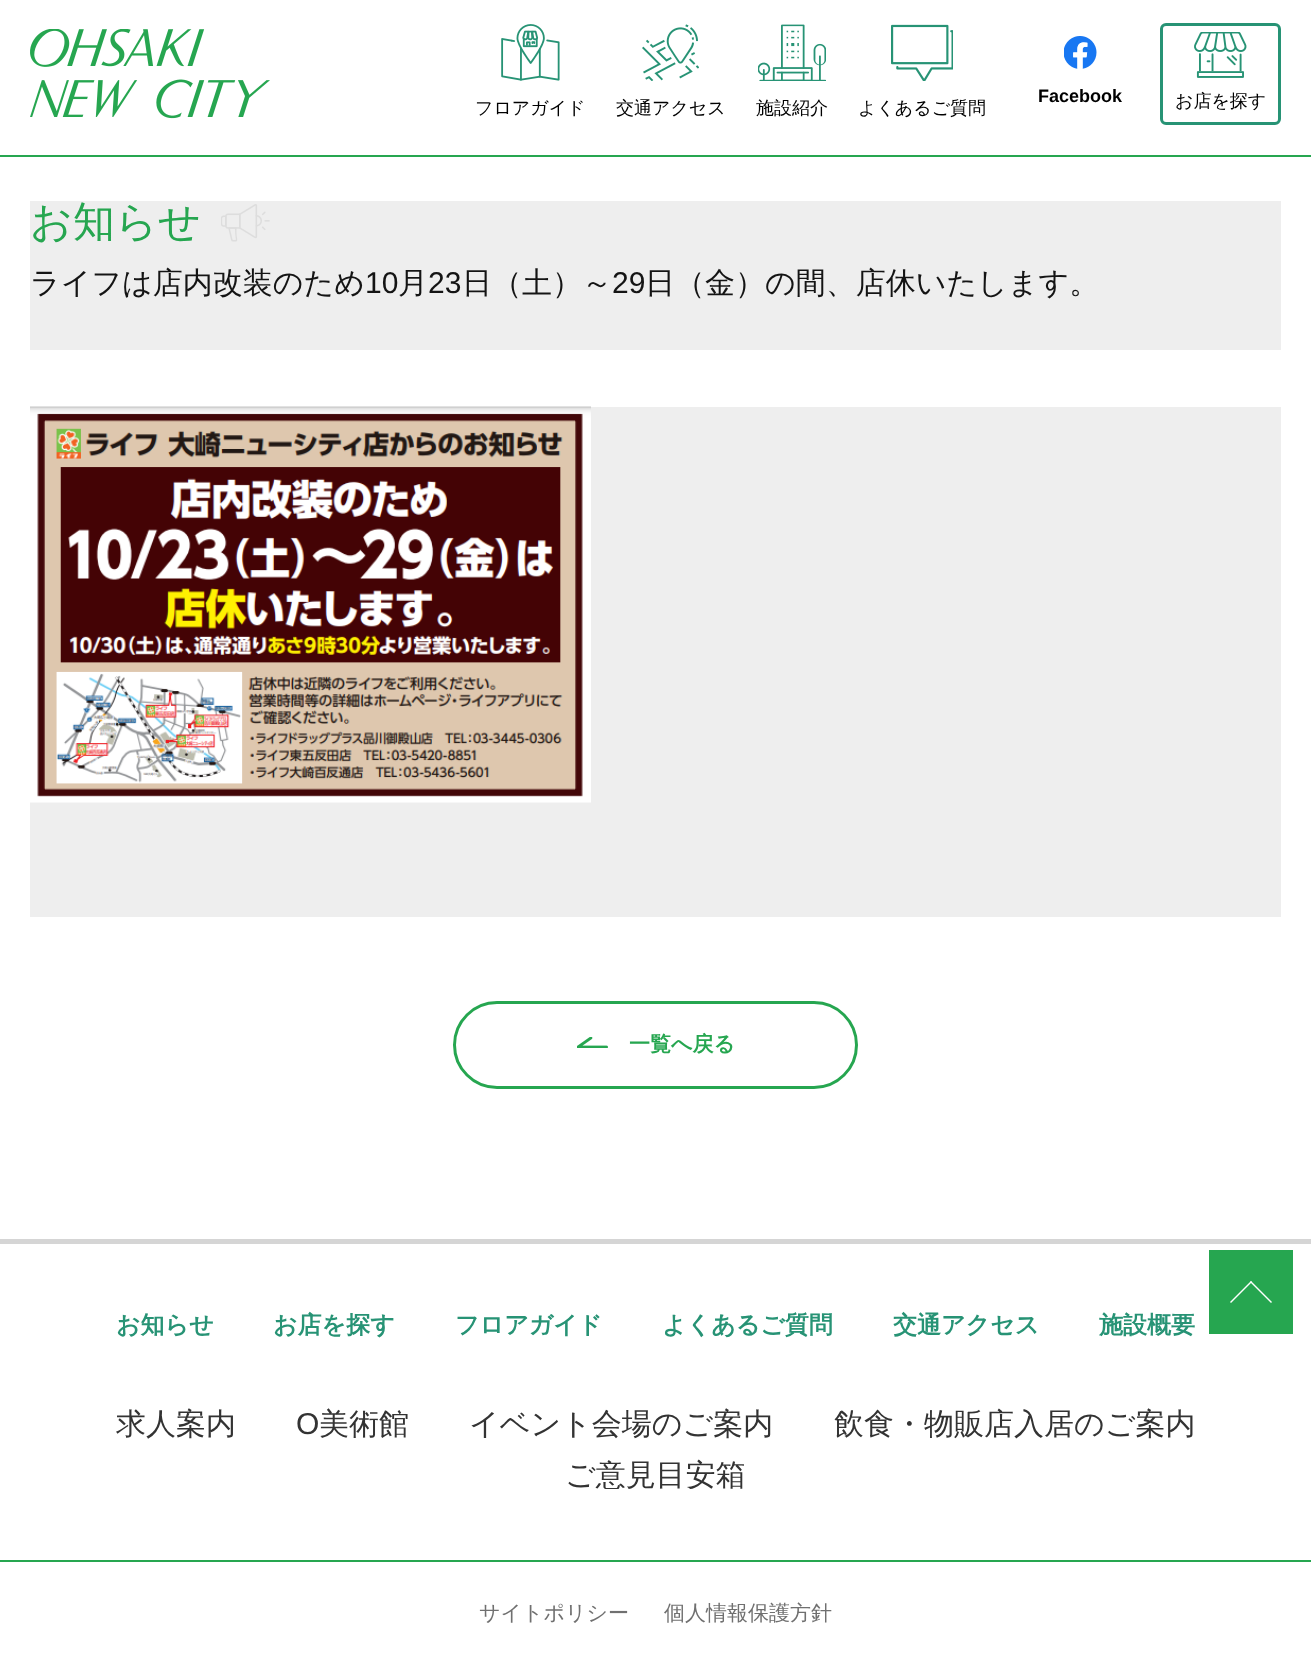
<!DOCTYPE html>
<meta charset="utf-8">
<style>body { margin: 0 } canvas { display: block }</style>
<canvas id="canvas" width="1311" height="1666"></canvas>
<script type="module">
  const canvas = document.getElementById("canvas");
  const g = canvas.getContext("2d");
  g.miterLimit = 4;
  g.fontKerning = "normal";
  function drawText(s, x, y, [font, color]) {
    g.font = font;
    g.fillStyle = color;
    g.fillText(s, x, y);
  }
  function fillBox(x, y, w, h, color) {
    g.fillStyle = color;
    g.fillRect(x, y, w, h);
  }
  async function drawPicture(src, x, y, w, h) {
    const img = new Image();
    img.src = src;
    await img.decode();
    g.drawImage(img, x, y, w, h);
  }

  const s1 = ["500 18px WenQuanYi Zen Hei", "#000000"];
  const s2 = ["bold 18px Liberation Sans", "#000000"];
  const s3 = ["500 42px WenQuanYi Zen Hei", "#26A650"];
  const s4 = ["500 30px WenQuanYi Zen Hei", "#141414"];
  const s5 = ["30px Liberation Sans", "#141414"];
  const s6 = ["bold 21px WenQuanYi Zen Hei", "#26A650"];
  const s7 = ["bold 24px WenQuanYi Zen Hei", "#279375"];
  const s8 = ["500 30px WenQuanYi Zen Hei", "#333333"];
  const s9 = ["30px Liberation Sans", "#333333"];
  const s10 = ["500 21px WenQuanYi Zen Hei", "#707070"];

  fillBox(0, 0, 1311, 1666, "#FFFFFF");
  await drawPicture("pic1.png", 30, 29, 240, 90);
  await drawPicture("pic2.png", 501, 24, 59, 57);
  drawText("フロアガイド", 475, 114, s1);
  await drawPicture("pic3.png", 642, 24, 57, 57);
  drawText("交通アクセス", 616, 114, s1);
  await drawPicture("pic4.png", 758, 24, 68, 57);
  drawText("施設紹介", 756, 114, s1);
  await drawPicture("pic5.png", 891, 24, 62, 57);
  drawText("よくあるご質問", 858, 114, s1);
  await drawPicture("pic6.png", 1064, 36, 33, 33);
  drawText("Facebook", 1038, 102, s2);
  await drawPicture("pic7.png", 1194, 32, 53, 46);
  g.beginPath();
  g.roundRect(1161.5, 24.5, 118, 99, 4.5);
  g.strokeStyle = "#279375";
  g.lineWidth = 3;
  g.stroke();
  drawText("お店を探す", 1175, 107, s1);
  fillBox(0, 155, 1311, 2, "#26A650");
  fillBox(30, 201, 1251, 149, "#EEEEEE");
  drawText("お知らせ", 30, 236, s3);
  await drawPicture("pic8.png", 221, 204, 49, 38);
  drawText("ライフは店内改装のため", 30, 293, s4);
  drawText("10", 365, 293, s5);
  drawText("月", 398, 293, s4);
  drawText("23", 428, 293, s5);
  drawText("日（土）～", 462, 293, s4);
  drawText("29", 612, 293, s5);
  drawText("日（金）の間、店休いたします。", 645, 293, s4);
  fillBox(30, 407, 1251, 510, "#EEEEEE");
  await drawPicture("pic9.png", 30, 406, 561, 397);
  g.beginPath();
  g.roundRect(454.5, 1002.5, 402, 85, 42.5);
  g.strokeStyle = "#26A650";
  g.stroke();
  await drawPicture("pic10.png", 577, 1037, 31, 11);
  drawText("一覧へ戻る", 629, 1051, s6);
  fillBox(1209, 1250, 84, 84, "#26A650");
  g.fillStyle = "#FFFFFF";
  g.beginPath();
  g.moveTo(1230, 1302);
  g.lineTo(1251, 1281);
  g.lineTo(1252, 1282);
  g.lineTo(1231, 1303);
  g.closePath();
  g.fill();
  g.beginPath();
  g.moveTo(1250, 1282);
  g.lineTo(1251, 1281);
  g.lineTo(1272, 1302);
  g.lineTo(1271, 1303);
  g.closePath();
  g.fill();
  fillBox(0, 1239, 1311, 5, "#D5D5D5");
  drawText("お知らせ", 116, 1333, s7);
  drawText("お店を探す", 273, 1333, s7);
  drawText("フロアガイド", 455, 1333, s7);
  drawText("よくあるご質問", 662, 1333, s7);
  drawText("交通アクセス", 893, 1333, s7);
  drawText("施設概要", 1099, 1333, s7);
  drawText("求人案内", 116, 1434, s8);
  drawText("O", 296, 1434, s9);
  drawText("美術館", 319, 1434, s8);
  drawText("イベント会場のご案内", 469, 1434, s8);
  drawText("飲食・物販店入居のご案内", 834, 1434, s8);
  drawText("ご意見目安箱", 565, 1485, s8);
  fillBox(0, 1560, 1311, 2, "#26A650");
  drawText("サイトポリシー", 479, 1620, s10);
  drawText("個人情報保護方針", 664, 1620, s10);
</script>
